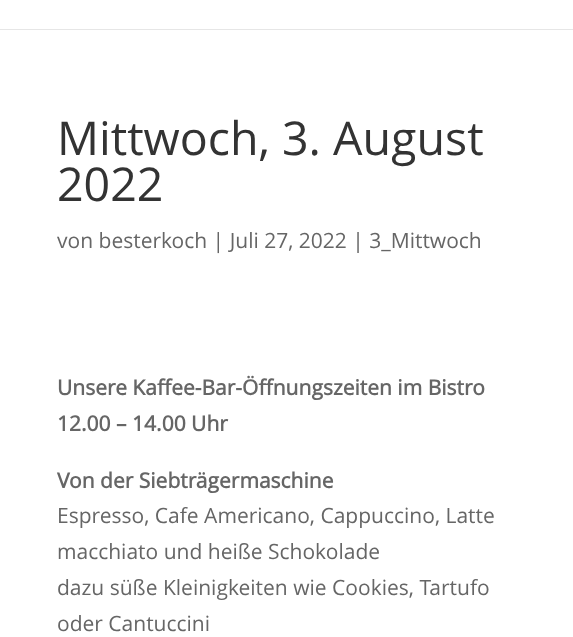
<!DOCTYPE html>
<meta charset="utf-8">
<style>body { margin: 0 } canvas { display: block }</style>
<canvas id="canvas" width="573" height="637"></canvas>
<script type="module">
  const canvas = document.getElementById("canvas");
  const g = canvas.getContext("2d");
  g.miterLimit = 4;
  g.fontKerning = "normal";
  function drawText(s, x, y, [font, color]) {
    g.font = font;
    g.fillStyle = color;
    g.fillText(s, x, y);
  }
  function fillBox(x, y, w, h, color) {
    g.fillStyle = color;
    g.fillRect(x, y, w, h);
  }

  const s1 = ["46.5px Open Sans", "#333333"];
  const s2 = ["21px Open Sans", "#666666"];
  const s3 = ["bold 21px Open Sans", "#666666"];

  fillBox(0, 0, 573, 637, "#FFFFFF");
  fillBox(0, 29, 573, 1, "#E6E6E6");
  drawText("Mittwoch, 3. August", 57, 155, s1);
  drawText("2022", 57, 201, s1);
  drawText("von besterkoch | Juli 27, 2022 | 3_Mittwoch", 57, 248, s2);
  drawText("Unsere Kaffee-Bar-Öffnungszeiten im Bistro", 57, 395, s3);
  drawText("12.00 – 14.00 Uhr", 57, 431, s3);
  drawText("Von der Siebträgermaschine", 57, 488, s3);
  drawText("Espresso, Cafe Americano, Cappuccino, Latte", 57, 523, s2);
  drawText("macchiato und heiße Schokolade", 57, 559, s2);
  drawText("dazu süße Kleinigkeiten wie Cookies, Tartufo", 57, 595, s2);
  drawText("oder Cantuccini", 57, 631, s2);
</script>
